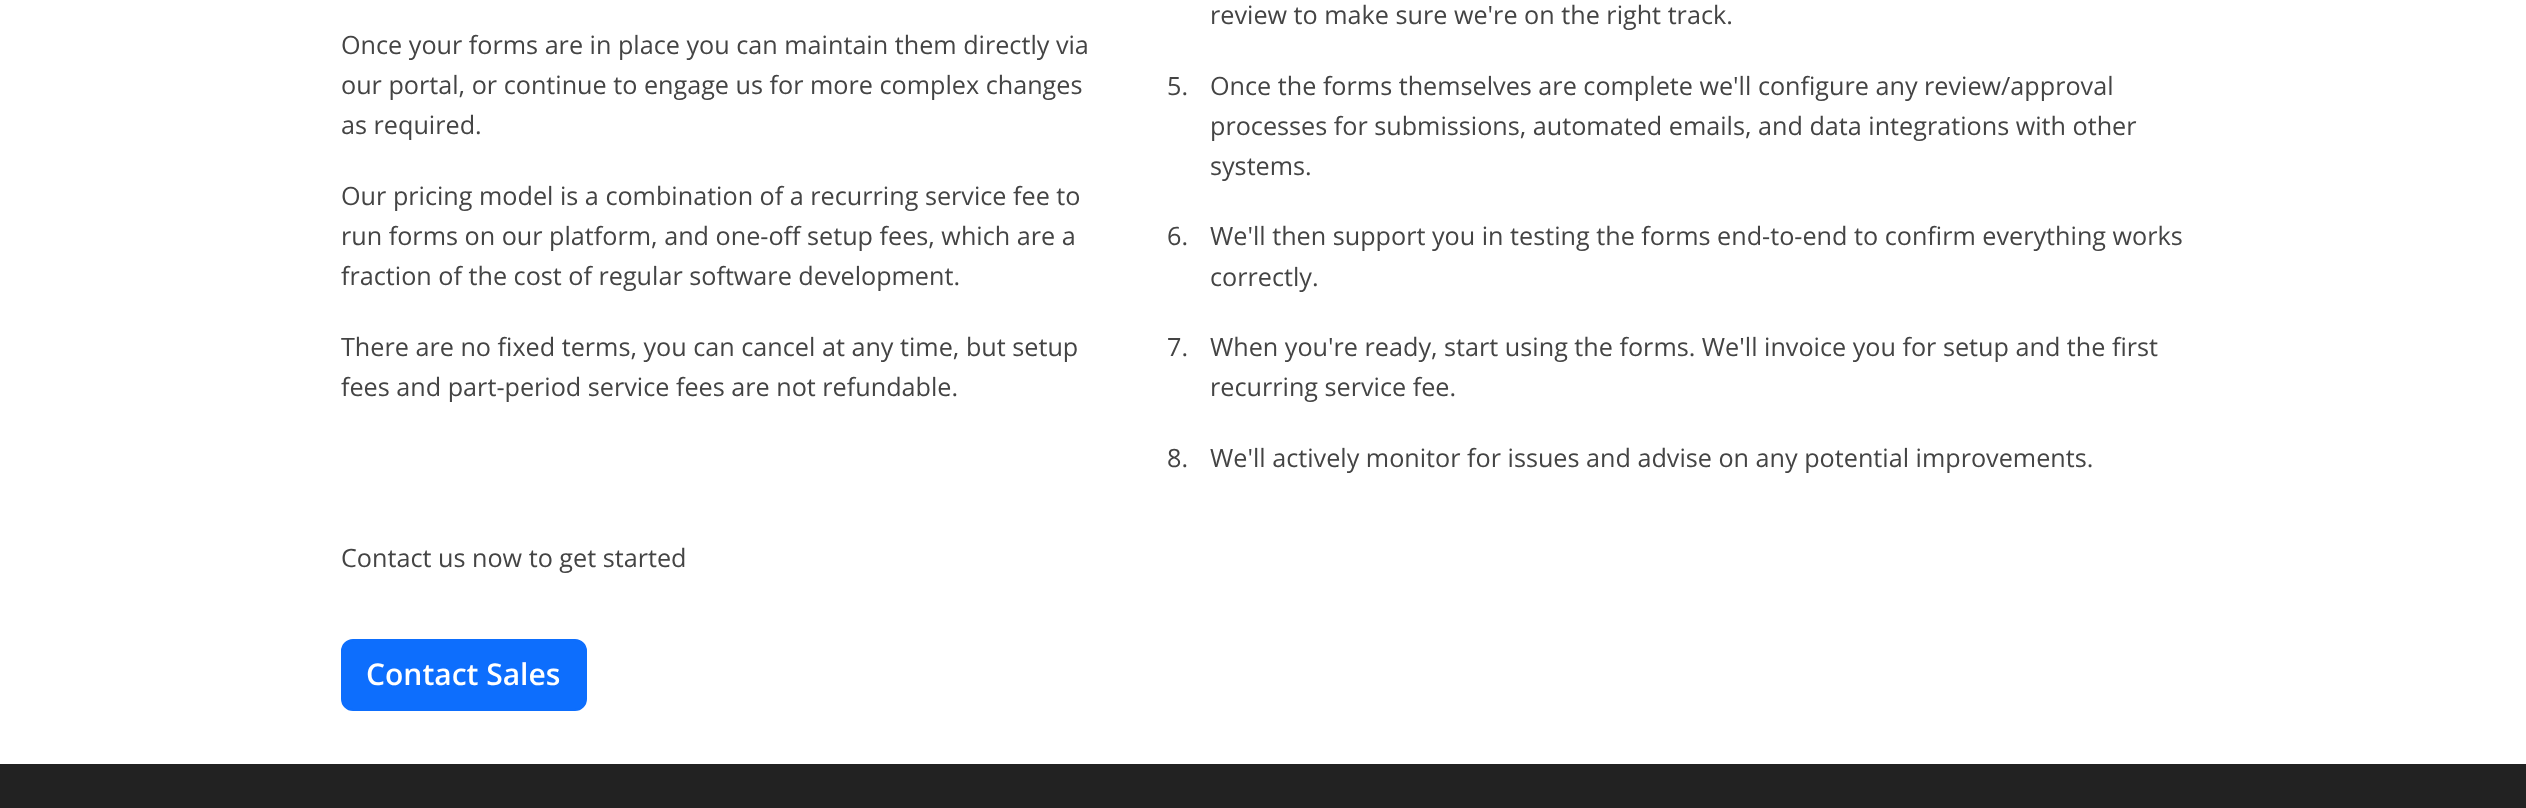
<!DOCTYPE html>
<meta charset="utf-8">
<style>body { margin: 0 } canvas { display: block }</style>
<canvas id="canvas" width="2526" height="808"></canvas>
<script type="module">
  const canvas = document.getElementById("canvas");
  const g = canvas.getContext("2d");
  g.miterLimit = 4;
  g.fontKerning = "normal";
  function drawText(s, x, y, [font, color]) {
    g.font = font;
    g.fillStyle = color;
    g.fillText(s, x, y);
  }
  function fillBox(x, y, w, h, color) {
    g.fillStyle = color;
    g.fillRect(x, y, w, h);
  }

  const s1 = ["25.2px Open Sans", "#444444"];
  const s2 = ["600 30px Open Sans", "#FFFFFF"];

  fillBox(0, 0, 2526, 808, "#FFFFFF");
  drawText("Once your forms are in place you can maintain them directly via", 341, 54, s1);
  drawText("our portal, or continue to engage us for more complex changes", 341, 94, s1);
  drawText("as required.", 341, 134, s1);
  drawText("Our pricing model is a combination of a recurring service fee to", 341, 205, s1);
  drawText("run forms on our platform, and one-off setup fees, which are a", 341, 245, s1);
  drawText("fraction of the cost of regular software development.", 341, 285, s1);
  drawText("There are no fixed terms, you can cancel at any time, but setup", 341, 356, s1);
  drawText("fees and part-period service fees are not refundable.", 341, 396, s1);
  drawText("review to make sure we're on the right track.", 1210, 24, s1);
  drawText("5.", 1167, 95, s1);
  drawText("Once the forms themselves are complete we'll configure any review/approval", 1210, 95, s1);
  drawText("processes for submissions, automated emails, and data integrations with other", 1210, 135, s1);
  drawText("systems.", 1210, 175, s1);
  drawText("6.", 1167, 245, s1);
  drawText("We'll then support you in testing the forms end-to-end to confirm everything works", 1210, 245, s1);
  drawText("correctly.", 1210, 286, s1);
  drawText("7.", 1167, 356, s1);
  drawText("When you're ready, start using the forms. We'll invoice you for setup and the first", 1210, 356, s1);
  drawText("recurring service fee.", 1210, 396, s1);
  drawText("8.", 1167, 467, s1);
  drawText("We'll actively monitor for issues and advise on any potential improvements.", 1210, 467, s1);
  drawText("Contact us now to get started", 341, 567, s1);
  g.fillStyle = "#0D6EFD";
  g.beginPath();
  g.roundRect(342, 640, 244, 70, 11);
  g.fill();
  g.strokeStyle = "#0D6EFD";
  g.lineWidth = 2;
  g.stroke();
  drawText("Contact Sales", 366, 685, s2);
  fillBox(0, 764, 2526, 44, "#222222");
</script>
